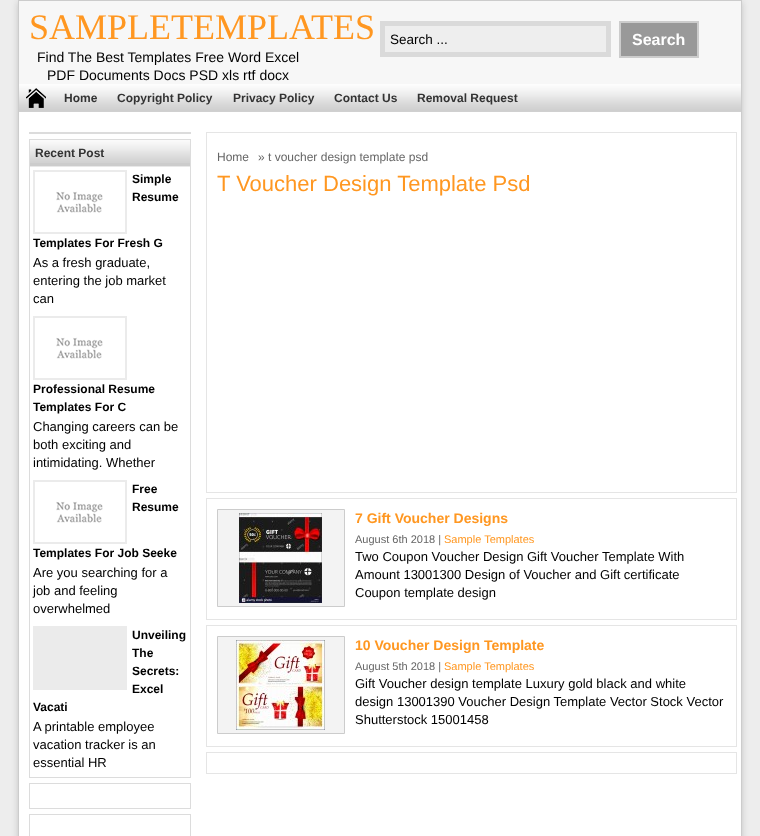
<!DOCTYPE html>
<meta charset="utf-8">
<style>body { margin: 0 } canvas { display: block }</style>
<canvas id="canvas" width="760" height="836"></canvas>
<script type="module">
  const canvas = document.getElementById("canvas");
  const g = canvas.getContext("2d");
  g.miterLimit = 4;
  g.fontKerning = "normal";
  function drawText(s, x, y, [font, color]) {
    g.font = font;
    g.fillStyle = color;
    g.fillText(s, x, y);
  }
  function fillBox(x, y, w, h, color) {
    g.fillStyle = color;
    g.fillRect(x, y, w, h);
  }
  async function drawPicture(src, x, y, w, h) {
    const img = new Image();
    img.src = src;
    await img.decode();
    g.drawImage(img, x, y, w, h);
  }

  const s1 = ["36px Liberation Serif", "#FF9721"];
  const s2 = ["14px Liberation Sans", "#000000"];
  const s3 = ["13.5px Liberation Sans", "#000000"];
  const s4 = ["bold 16px Liberation Sans", "#FFFFFF"];
  const s5 = ["bold 12px Liberation Sans", "#333333"];
  const s6 = ["bold 12px Liberation Sans", "#000000"];
  const s7 = ["13px Liberation Sans", "#000000"];
  const s8 = ["12px Liberation Sans", "#666666"];
  const s9 = ["22px Liberation Sans", "#FF9721"];
  const s10 = ["bold 14px Liberation Sans", "#FF9721"];
  const s11 = ["11px Liberation Sans", "#666666"];
  const s12 = ["11px Liberation Sans", "#FF9721"];

  fillBox(0, 0, 760, 836, "#EDEDED");
  g.fillStyle = "rgba(100, 100, 100, 0.3)";
  g.filter = "blur(3px)";
  g.beginPath();
  g.rect(18, 2, 724, 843);
  g.fill();
  g.filter = "none";
  fillBox(19, 111, 722, 725, "#FFFFFF");
  g.strokeStyle = "#CCCCCC";
  g.strokeRect(18.5, 0.5, 723, 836);
  fillBox(19, 1, 722, 83, "#F7F7F7");
  drawText("SAMPLETEMPLATES", 29, 39, s1);
  drawText("Find The Best Templates Free Word Excel", 37, 62, s2);
  drawText("PDF Documents Docs PSD xls rtf docx", 47, 80, s2);
  g.fillStyle = "#EEEEEE";
  g.beginPath();
  g.rect(382.5, 23.5, 226, 31);
  g.fill();
  g.strokeStyle = "#DADADA";
  g.lineWidth = 5;
  g.stroke();
  drawText("Search ...", 390, 44, s3);
  g.fillStyle = "#999999";
  g.beginPath();
  g.rect(620, 22, 78, 35);
  g.fill();
  g.strokeStyle = "#CCCCCC";
  g.lineWidth = 2;
  g.stroke();
  drawText("Search", 632, 45, s4);
  await drawPicture("pic1.png", 19, 84, 722, 28);
  await drawPicture("pic2.png", 26, 88, 20, 20);
  drawText("Home", 64, 102, s5);
  drawText("Copyright Policy", 117, 102, s5);
  drawText("Privacy Policy", 233, 102, s5);
  drawText("Contact Us", 334, 102, s5);
  drawText("Removal Request", 417, 102, s5);
  fillBox(29, 132, 162, 2, "#DCDCDC");
  g.strokeStyle = "#DCDCDC";
  g.lineWidth = 1;
  g.strokeRect(29.5, 139.5, 161, 638);
  fillBox(30, 163, 160, 3, "#CCCCCC");
  await drawPicture("pic3.png", 30, 140, 160, 23);
  fillBox(30, 166, 160, 1, "#E8E8E8");
  drawText("Recent Post", 35, 157, s5);
  fillBox(33, 170, 94, 64, "#EBEBEB");
  await drawPicture("pic4.png", 35, 172, 90, 60);
  drawText("Simple", 132, 183, s6);
  drawText("Resume", 132, 201, s6);
  drawText("Templates For Fresh G", 33, 247, s6);
  drawText("As a fresh graduate,", 33, 267, s7);
  drawText("entering the job market", 33, 285, s7);
  drawText("can", 33, 303, s7);
  fillBox(33, 316, 94, 64, "#EBEBEB");
  await drawPicture("pic4.png", 35, 318, 90, 60);
  drawText("Professional Resume", 33, 393, s6);
  drawText("Templates For C", 33, 411, s6);
  drawText("Changing careers can be", 33, 431, s7);
  drawText("both exciting and", 33, 449, s7);
  drawText("intimidating. Whether", 33, 467, s7);
  fillBox(33, 480, 94, 64, "#EBEBEB");
  await drawPicture("pic4.png", 35, 482, 90, 60);
  drawText("Free", 132, 493, s6);
  drawText("Resume", 132, 511, s6);
  drawText("Templates For Job Seeke", 33, 557, s6);
  drawText("Are you searching for a", 33, 577, s7);
  drawText("job and feeling", 33, 595, s7);
  drawText("overwhelmed", 33, 613, s7);
  fillBox(33, 626, 94, 64, "#EBEBEB");
  drawText("Unveiling", 132, 639, s6);
  drawText("The", 132, 657, s6);
  drawText("Secrets:", 132, 675, s6);
  drawText("Excel", 132, 693, s6);
  drawText("Vacati", 33, 711, s6);
  drawText("A printable employee", 33, 731, s7);
  drawText("vacation tracker is an", 33, 749, s7);
  drawText("essential HR", 33, 767, s7);
  g.strokeRect(29.5, 783.5, 161, 25);
  g.strokeRect(29.5, 814.5, 161, 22);
  g.strokeStyle = "#E5E5E5";
  g.strokeRect(206.5, 132.5, 530, 360);
  drawText("Home", 217, 161, s8);
  drawText("» t voucher design template psd", 258, 161, s8);
  drawText("T Voucher Design Template Psd", 217, 191, s9);
  g.strokeRect(206.5, 498.5, 530, 121);
  g.fillStyle = "#F3F3F3";
  g.beginPath();
  g.rect(217.5, 509.5, 127, 97);
  g.fill();
  g.strokeStyle = "#CCCCCC";
  g.stroke();
  await drawPicture("pic5.png", 239, 513, 83, 90);
  drawText("7 Gift Voucher Designs", 355, 523, s10);
  drawText("August 6th 2018 |", 355, 543, s11);
  drawText("Sample Templates", 444, 543, s12);
  drawText("Two Coupon Voucher Design Gift Voucher Template With", 355, 561, s7);
  drawText("Amount 13001300 Design of Voucher and Gift certificate", 355, 579, s7);
  drawText("Coupon template design", 355, 597, s7);
  g.strokeStyle = "#E5E5E5";
  g.strokeRect(206.5, 625.5, 530, 121);
  g.fillStyle = "#F3F3F3";
  g.beginPath();
  g.rect(217.5, 636.5, 127, 97);
  g.fill();
  g.strokeStyle = "#CCCCCC";
  g.stroke();
  await drawPicture("pic6.png", 236, 640, 89, 90);
  drawText("10 Voucher Design Template", 355, 650, s10);
  drawText("August 5th 2018 |", 355, 670, s11);
  drawText("Sample Templates", 444, 670, s12);
  drawText("Gift Voucher design template Luxury gold black and white", 355, 688, s7);
  drawText("design 13001390 Voucher Design Template Vector Stock Vector", 355, 706, s7);
  drawText("Shutterstock 15001458", 355, 724, s7);
  g.strokeStyle = "#E5E5E5";
  g.strokeRect(206.5, 752.5, 530, 21);
</script>
